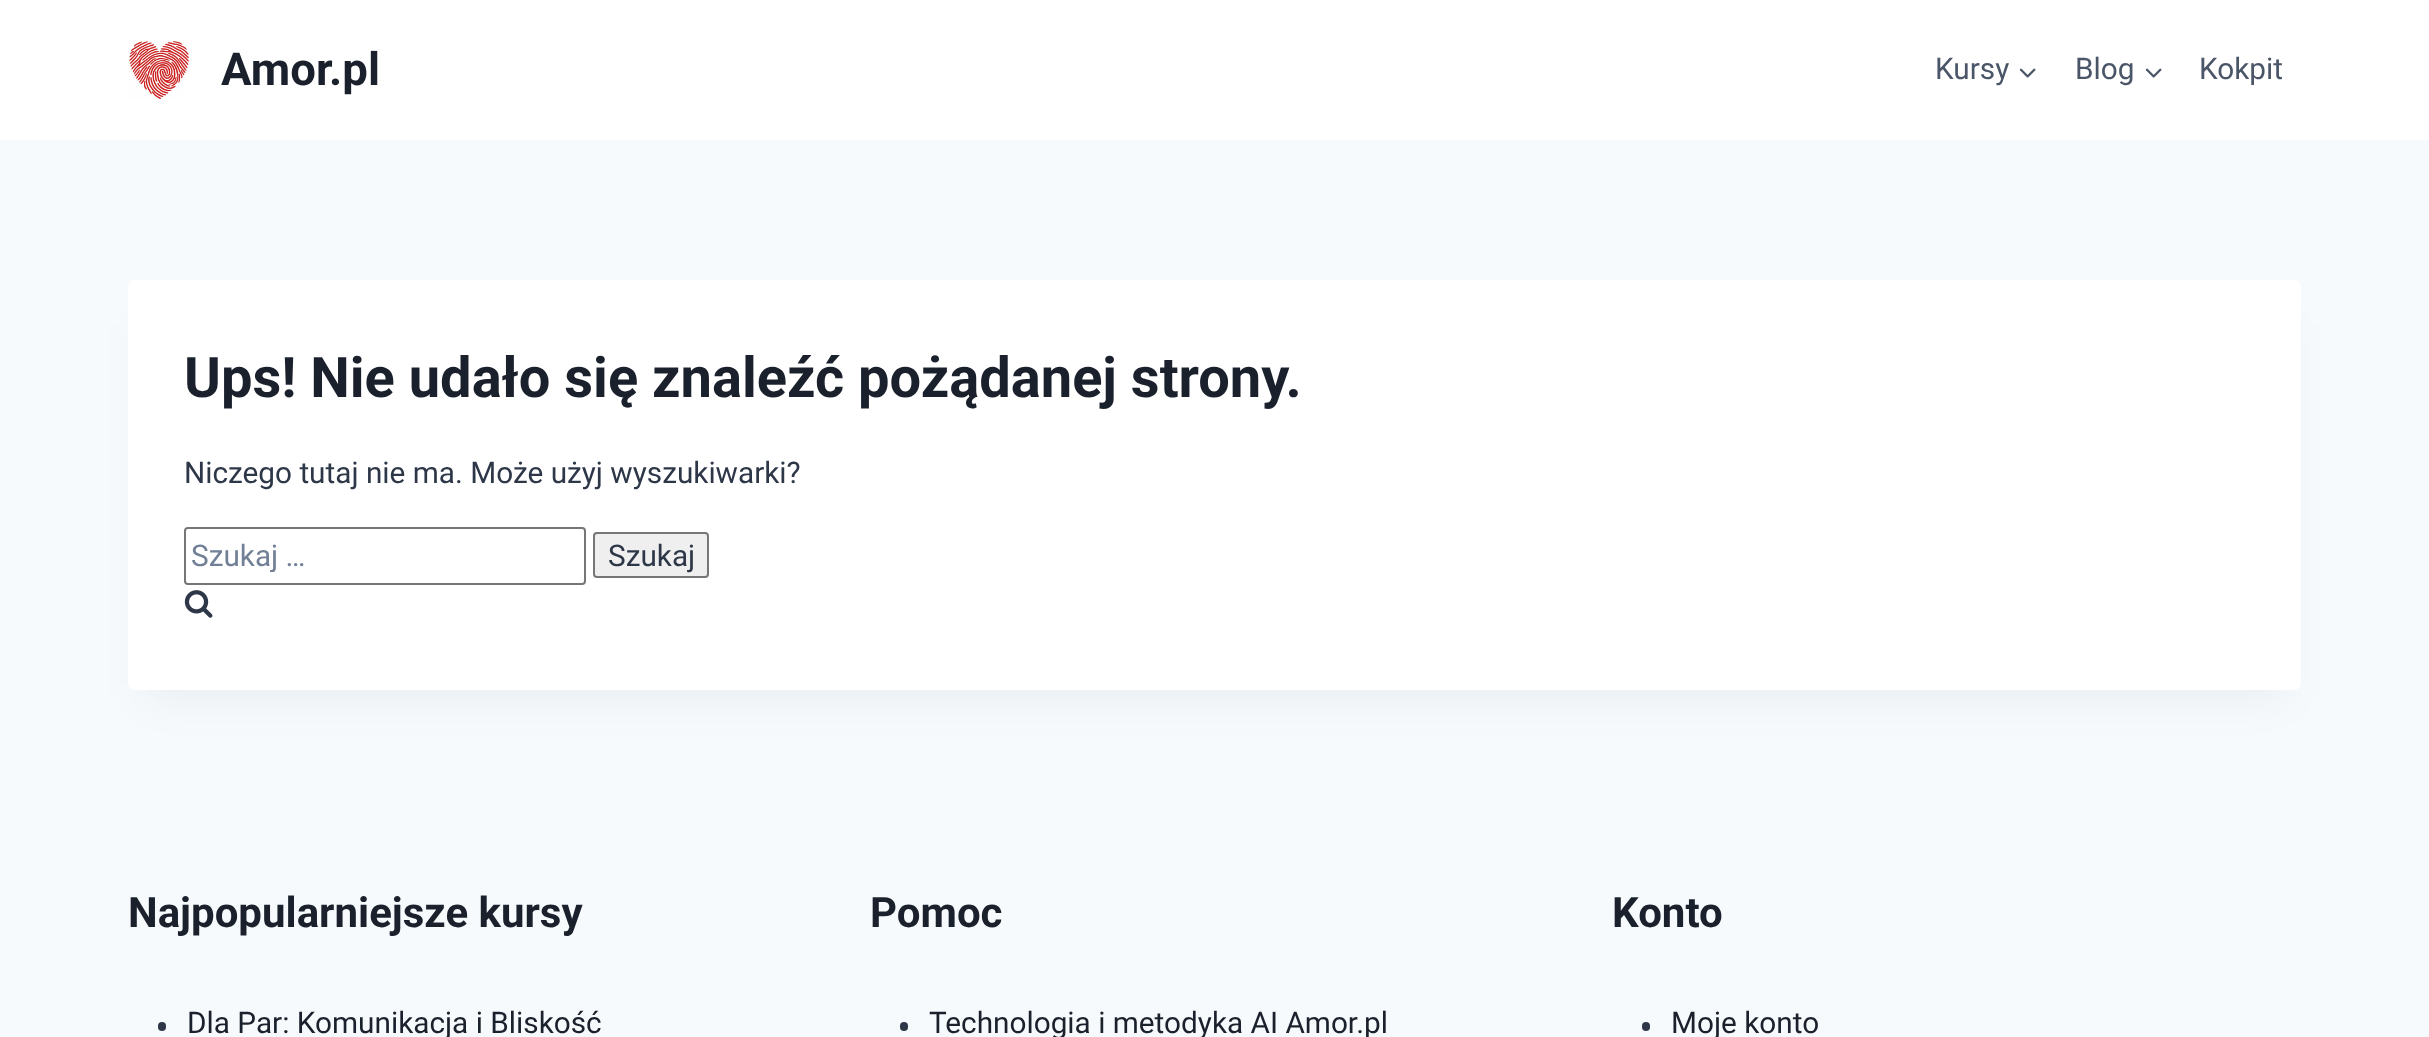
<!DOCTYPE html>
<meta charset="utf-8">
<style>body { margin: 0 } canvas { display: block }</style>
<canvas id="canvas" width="2429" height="1037"></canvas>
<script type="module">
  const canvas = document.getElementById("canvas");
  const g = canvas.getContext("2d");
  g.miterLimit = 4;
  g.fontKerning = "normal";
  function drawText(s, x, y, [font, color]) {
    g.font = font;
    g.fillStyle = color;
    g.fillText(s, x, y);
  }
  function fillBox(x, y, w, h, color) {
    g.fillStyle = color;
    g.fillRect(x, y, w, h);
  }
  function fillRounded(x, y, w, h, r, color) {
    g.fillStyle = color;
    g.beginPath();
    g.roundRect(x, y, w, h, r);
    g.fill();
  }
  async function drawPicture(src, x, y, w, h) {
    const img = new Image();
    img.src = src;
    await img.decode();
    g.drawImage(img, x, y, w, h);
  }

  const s1 = ["bold 45.5px Roboto", "#1A202C"];
  const s2 = ["29.75px Roboto", "#4A5568"];
  const s3 = ["bold 56px Roboto", "#1A202C"];
  const s4 = ["29.75px Roboto", "#2D3748"];
  const s5 = ["29.75px Roboto", "#718096"];
  const s6 = ["bold 42px Roboto", "#1A202C"];
  const s7 = ["29.75px Roboto", "#1A202C"];

  fillBox(0, 0, 2429, 1037, "#F7FAFC");
  fillBox(0, 0, 2429, 140, "#FFFFFF");
  await drawPicture("pic1.png", 129, 41, 60, 59);
  drawText("Amor.pl", 221, 85, s1);
  drawText("Kursy", 1935, 79, s2);
  await drawPicture("pic2.png", 2019, 68, 17, 10);
  drawText("Blog", 2075, 79, s2);
  await drawPicture("pic2.png", 2145, 68, 17, 10);
  drawText("Kokpit", 2199, 79, s2);
  g.fillStyle = "rgba(0, 0, 0, 0.05)";
  g.filter = "blur(22px)";
  g.beginPath();
  g.rect(145, 324, 2139, 374);
  g.fill();
  g.filter = "none";
  fillRounded(128, 280, 2173, 410, 7, "#FFFFFF");
  drawText("Ups! Nie udało się znaleźć pożądanej strony.", 184, 397, s3);
  drawText("Niczego tutaj nie ma. Może użyj wyszukiwarki?", 184, 483, s4);
  g.beginPath();
  g.roundRect(185, 528, 400, 56, 3);
  g.strokeStyle = "#767676";
  g.lineWidth = 2;
  g.stroke();
  g.save();
  g.beginPath();
  g.rect(191, 537, 360, 35);
  g.clip();
  drawText("Szukaj …", 191, 566, s5);
  g.restore();
  g.fillStyle = "#EFEFEF";
  g.beginPath();
  g.roundRect(594, 533, 114, 44, 3);
  g.fill();
  g.stroke();
  drawText("Szukaj", 608, 566, s4);
  await drawPicture("pic3.png", 184, 590, 29, 28);
  drawText("Najpopularniejsze kursy", 128, 927, s6);
  fillRounded(158, 1022, 8, 9, 4, "#2D3748");
  drawText("Dla Par: Komunikacja i Bliskość", 187, 1033, s7);
  drawText("Pomoc", 870, 927, s6);
  fillRounded(900, 1022, 8, 9, 4, "#2D3748");
  drawText("Technologia i metodyka AI Amor.pl", 929, 1033, s7);
  drawText("Konto", 1612, 927, s6);
  fillRounded(1642, 1022, 8, 9, 4, "#2D3748");
  drawText("Moje konto", 1671, 1033, s7);
</script>
